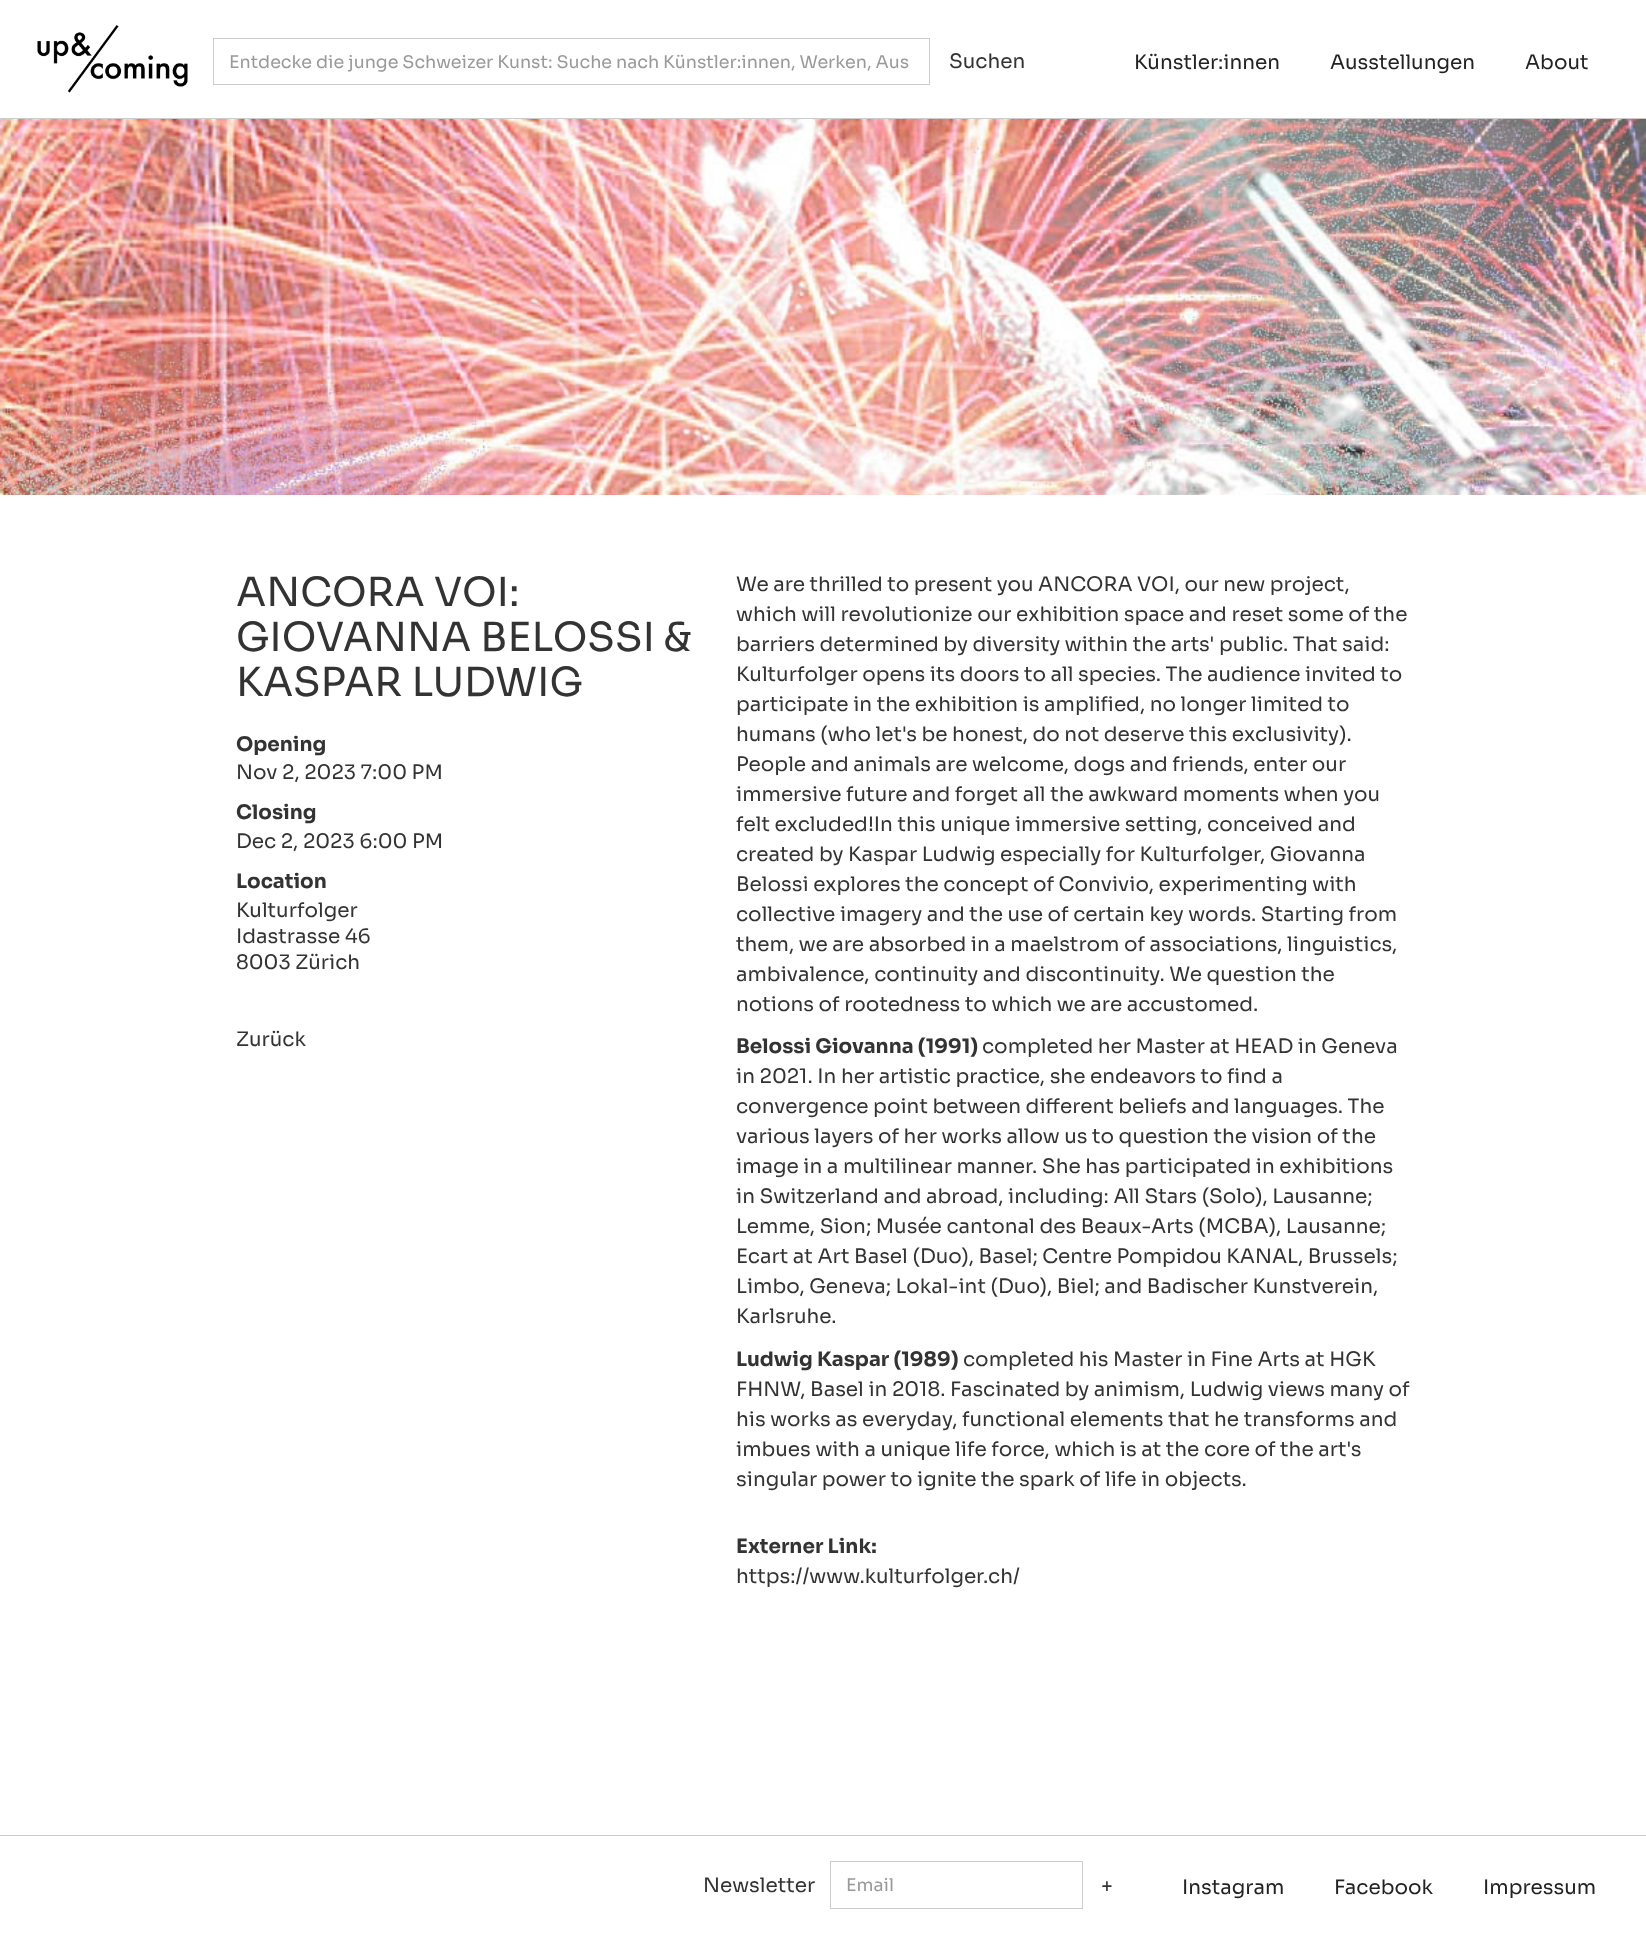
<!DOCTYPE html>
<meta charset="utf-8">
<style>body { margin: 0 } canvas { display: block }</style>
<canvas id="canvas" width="1646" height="1933"></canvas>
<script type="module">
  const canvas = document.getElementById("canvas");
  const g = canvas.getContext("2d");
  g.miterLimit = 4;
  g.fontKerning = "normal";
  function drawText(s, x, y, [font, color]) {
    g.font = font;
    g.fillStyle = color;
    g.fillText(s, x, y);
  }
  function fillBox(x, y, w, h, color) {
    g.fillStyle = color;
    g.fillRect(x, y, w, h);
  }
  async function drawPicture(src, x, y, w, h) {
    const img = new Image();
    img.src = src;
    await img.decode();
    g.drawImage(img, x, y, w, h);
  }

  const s1 = ["17.5px Sora", "#999999"];
  const s2 = ["20px Sora", "#333333"];
  const s3 = ["20px Sora", "#222222"];
  const s4 = ["40px Sora", "#333333"];
  const s5 = ["bold 20px Sora", "#333333"];

  fillBox(0, 0, 1646, 1933, "#FFFFFF");
  await drawPicture("pic1.png", 37, 25, 151, 68);
  g.strokeStyle = "#CCCCCC";
  g.strokeRect(213.5, 38.5, 716, 46);
  drawText("Entdecke die junge Schweizer Kunst: Suche nach Künstler:innen, Werken, Aus", 229, 68, s1);
  drawText("Suchen", 949, 68, s2);
  drawText("Künstler:innen", 1134, 69, s3);
  drawText("Ausstellungen", 1330, 69, s3);
  drawText("About", 1525, 69, s3);
  fillBox(0, 118, 1646, 1, "#CCCCCC");
  await drawPicture("pic2.png", 0, 119, 1646, 376);
  drawText("ANCORA VOI:", 236, 606, s4);
  drawText("GIOVANNA BELOSSI &", 236, 651, s4);
  drawText("KASPAR LUDWIG", 236, 696, s4);
  drawText("Opening", 236, 751, s5);
  drawText("Nov 2, 2023 7:00 PM", 236, 779, s2);
  drawText("Closing", 236, 819, s5);
  drawText("Dec 2, 2023 6:00 PM", 236, 848, s2);
  drawText("Location", 236, 888, s5);
  drawText("Kulturfolger", 236, 917, s2);
  drawText("Idastrasse 46", 236, 943, s2);
  drawText("8003 Zürich", 236, 969, s2);
  drawText("Zurück", 236, 1046, s2);
  drawText("We are thrilled to present you ANCORA VOI, our new project,", 736, 591, s2);
  drawText("which will revolutionize our exhibition space and reset some of the", 736, 621, s2);
  drawText("barriers determined by diversity within the arts' public. That said:", 736, 651, s2);
  drawText("Kulturfolger opens its doors to all species. The audience invited to", 736, 681, s2);
  drawText("participate in the exhibition is amplified, no longer limited to", 736, 711, s2);
  drawText("humans (who let's be honest, do not deserve this exclusivity).", 736, 741, s2);
  drawText("People and animals are welcome, dogs and friends, enter our", 736, 771, s2);
  drawText("immersive future and forget all the awkward moments when you", 736, 801, s2);
  drawText("felt excluded!In this unique immersive setting, conceived and", 736, 831, s2);
  drawText("created by Kaspar Ludwig especially for Kulturfolger, Giovanna", 736, 861, s2);
  drawText("Belossi explores the concept of Convivio, experimenting with", 736, 891, s2);
  drawText("collective imagery and the use of certain key words. Starting from", 736, 921, s2);
  drawText("them, we are absorbed in a maelstrom of associations, linguistics,", 736, 951, s2);
  drawText("ambivalence, continuity and discontinuity. We question the", 736, 981, s2);
  drawText("notions of rootedness to which we are accustomed.", 736, 1011, s2);
  drawText("Belossi Giovanna (1991)", 736, 1053, s5);
  drawText("completed her Master at HEAD in Geneva", 982, 1053, s2);
  drawText("in 2021. In her artistic practice, she endeavors to find a", 736, 1083, s2);
  drawText("convergence point between different beliefs and languages. The", 736, 1113, s2);
  drawText("various layers of her works allow us to question the vision of the", 736, 1143, s2);
  drawText("image in a multilinear manner. She has participated in exhibitions", 736, 1173, s2);
  drawText("in Switzerland and abroad, including: All Stars (Solo), Lausanne;", 736, 1203, s2);
  drawText("Lemme, Sion; Musée cantonal des Beaux-Arts (MCBA), Lausanne;", 736, 1233, s2);
  drawText("Ecart at Art Basel (Duo), Basel; Centre Pompidou KANAL, Brussels;", 736, 1263, s2);
  drawText("Limbo, Geneva; Lokal-int (Duo), Biel; and Badischer Kunstverein,", 736, 1293, s2);
  drawText("Karlsruhe.", 736, 1323, s2);
  drawText("Ludwig Kaspar (1989)", 736, 1366, s5);
  drawText("completed his Master in Fine Arts at HGK", 963, 1366, s2);
  drawText("FHNW, Basel in 2018. Fascinated by animism, Ludwig views many of", 736, 1396, s2);
  drawText("his works as everyday, functional elements that he transforms and", 736, 1426, s2);
  drawText("imbues with a unique life force, which is at the core of the art's", 736, 1456, s2);
  drawText("singular power to ignite the spark of life in objects.", 736, 1486, s2);
  drawText("Externer Link:", 736, 1553, s5);
  drawText("https://www.kulturfolger.ch/", 736, 1583, s2);
  fillBox(0, 1835, 1646, 1, "#CCCCCC");
  drawText("Newsletter", 703, 1892, s2);
  g.strokeRect(830.5, 1861.5, 252, 47);
  drawText("Email", 846, 1891, s1);
  drawText("+", 1101, 1893, s2);
  drawText("Instagram", 1182, 1894, s3);
  drawText("Facebook", 1334, 1894, s3);
  drawText("Impressum", 1483, 1894, s3);
</script>
